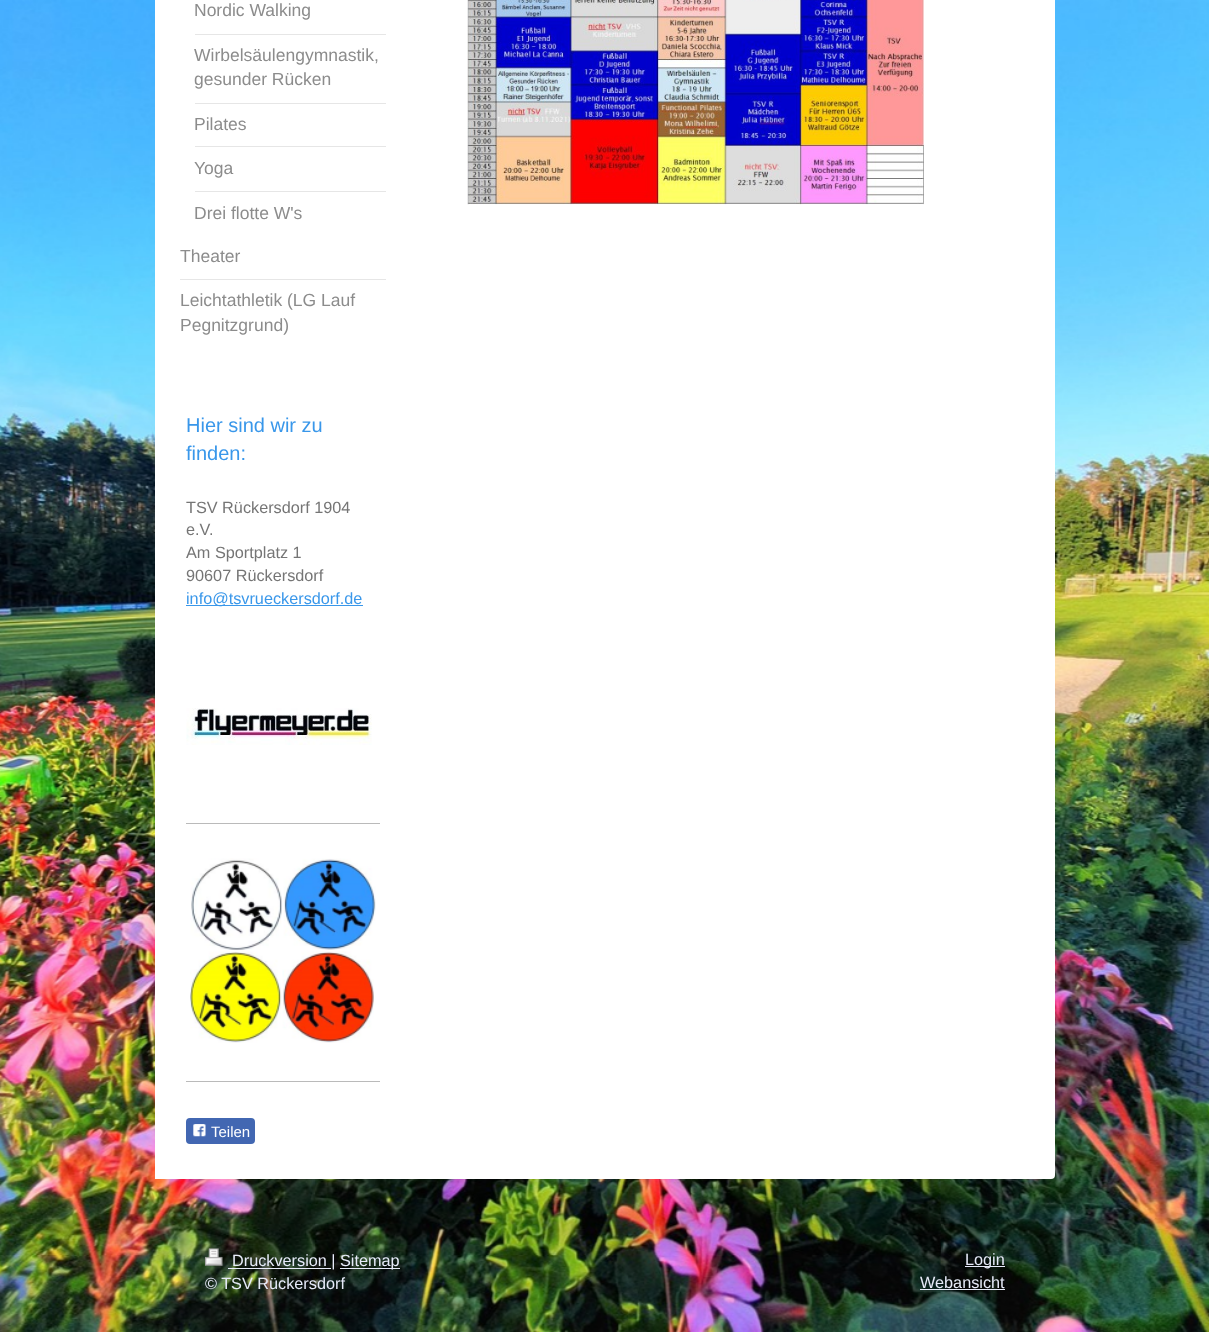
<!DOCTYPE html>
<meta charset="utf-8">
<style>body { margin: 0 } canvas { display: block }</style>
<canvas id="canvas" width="1209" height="1332"></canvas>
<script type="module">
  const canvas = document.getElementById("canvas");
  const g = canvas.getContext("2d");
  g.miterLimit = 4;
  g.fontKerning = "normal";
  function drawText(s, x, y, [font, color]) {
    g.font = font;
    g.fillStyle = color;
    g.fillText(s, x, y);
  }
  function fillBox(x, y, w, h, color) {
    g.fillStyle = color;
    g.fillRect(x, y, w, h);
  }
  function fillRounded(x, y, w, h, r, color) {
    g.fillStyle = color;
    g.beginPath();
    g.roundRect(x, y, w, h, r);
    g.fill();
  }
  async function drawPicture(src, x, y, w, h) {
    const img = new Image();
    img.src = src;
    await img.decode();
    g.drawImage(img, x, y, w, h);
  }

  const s1 = ["17.5px Liberation Sans", "#8C8C8C"];
  const s2 = ["20px Liberation Sans", "#3997EA"];
  const s3 = ["16.25px Liberation Sans", "#757575"];
  const s4 = ["16.25px Liberation Sans", "#3997EA"];
  const s5 = ["15px Liberation Sans", "#FFFFFF"];
  const s6 = ["16.25px Liberation Sans", "#E7EBF9"];

  fillBox(0, 0, 1209, 1332, "#FFFFFF");
  await drawPicture("pic1.png", 0, 0, 1209, 1332);
  fillRounded(155, -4, 900, 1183, 4, "#FFFFFF");
  fillBox(155, 1175, 4, 4, "#FFFFFF");
  fillBox(195, 34, 191, 1, "#E6E6E6");
  drawText("Nordic Walking", 194, 16, s1);
  fillBox(195, 103, 191, 1, "#E6E6E6");
  drawText("Wirbelsäulengymnastik,", 194, 61, s1);
  drawText("gesunder Rücken", 194, 85, s1);
  fillBox(195, 146, 191, 1, "#E6E6E6");
  drawText("Pilates", 194, 130, s1);
  fillBox(195, 191, 191, 1, "#E6E6E6");
  drawText("Yoga", 194, 174, s1);
  drawText("Drei flotte W's", 194, 219, s1);
  fillBox(180, 279, 206, 1, "#E6E6E6");
  drawText("Theater", 180, 262, s1);
  drawText("Leichtathletik (LG Lauf", 180, 306, s1);
  drawText("Pegnitzgrund)", 180, 331, s1);
  drawText("Hier sind wir zu", 186, 432, s2);
  drawText("finden:", 186, 460, s2);
  drawText("TSV Rückersdorf 1904", 186, 513, s3);
  drawText("e.V.", 186, 535, s3);
  drawText("Am Sportplatz 1", 186, 558, s3);
  drawText("90607 Rückersdorf", 186, 581, s3);
  fillBox(186, 605, 177, 1, "#3997EA");
  drawText("info@tsvrueckersdorf.de", 186, 604, s4);
  await drawPicture("pic2.png", 186, 708, 186, 37);
  fillBox(186, 823, 194, 1, "#BABABA");
  await drawPicture("pic3.png", 190, 858, 186, 185);
  fillBox(186, 1081, 194, 1, "#BABABA");
  fillRounded(186, 1118, 69, 26, 4, "#4267B2");
  await drawPicture("pic4.png", 193, 1124, 13, 13);
  drawText("Teilen", 211, 1137, s5);
  await drawPicture("pic5.png", 467, 0, 457, 205);
  g.fillStyle = "rgba(0, 0, 0, 0.1)";
  g.filter = "blur(12.5px)";
  g.beginPath();
  g.roundRect(263, 1213, 685, 21, 10.5);
  g.fill();
  g.filter = "none";
  await drawPicture("pic6.png", 205, 1248, 18, 18);
  fillBox(228, 1268, 103, 1, "#E7EBF9");
  drawText("Druckversion |", 232, 1266, s6);
  fillBox(340, 1268, 60, 1, "#E7EBF9");
  drawText("Sitemap", 340, 1266, s6);
  drawText("© TSV Rückersdorf", 205, 1289, s6);
  fillBox(965, 1266, 40, 1, "#E7EBF9");
  drawText("Login", 965, 1265, s6);
  drawText("Webansicht", 920, 1288, s6);
  fillBox(920, 1289, 85, 1, "#E7EBF9");
</script>
